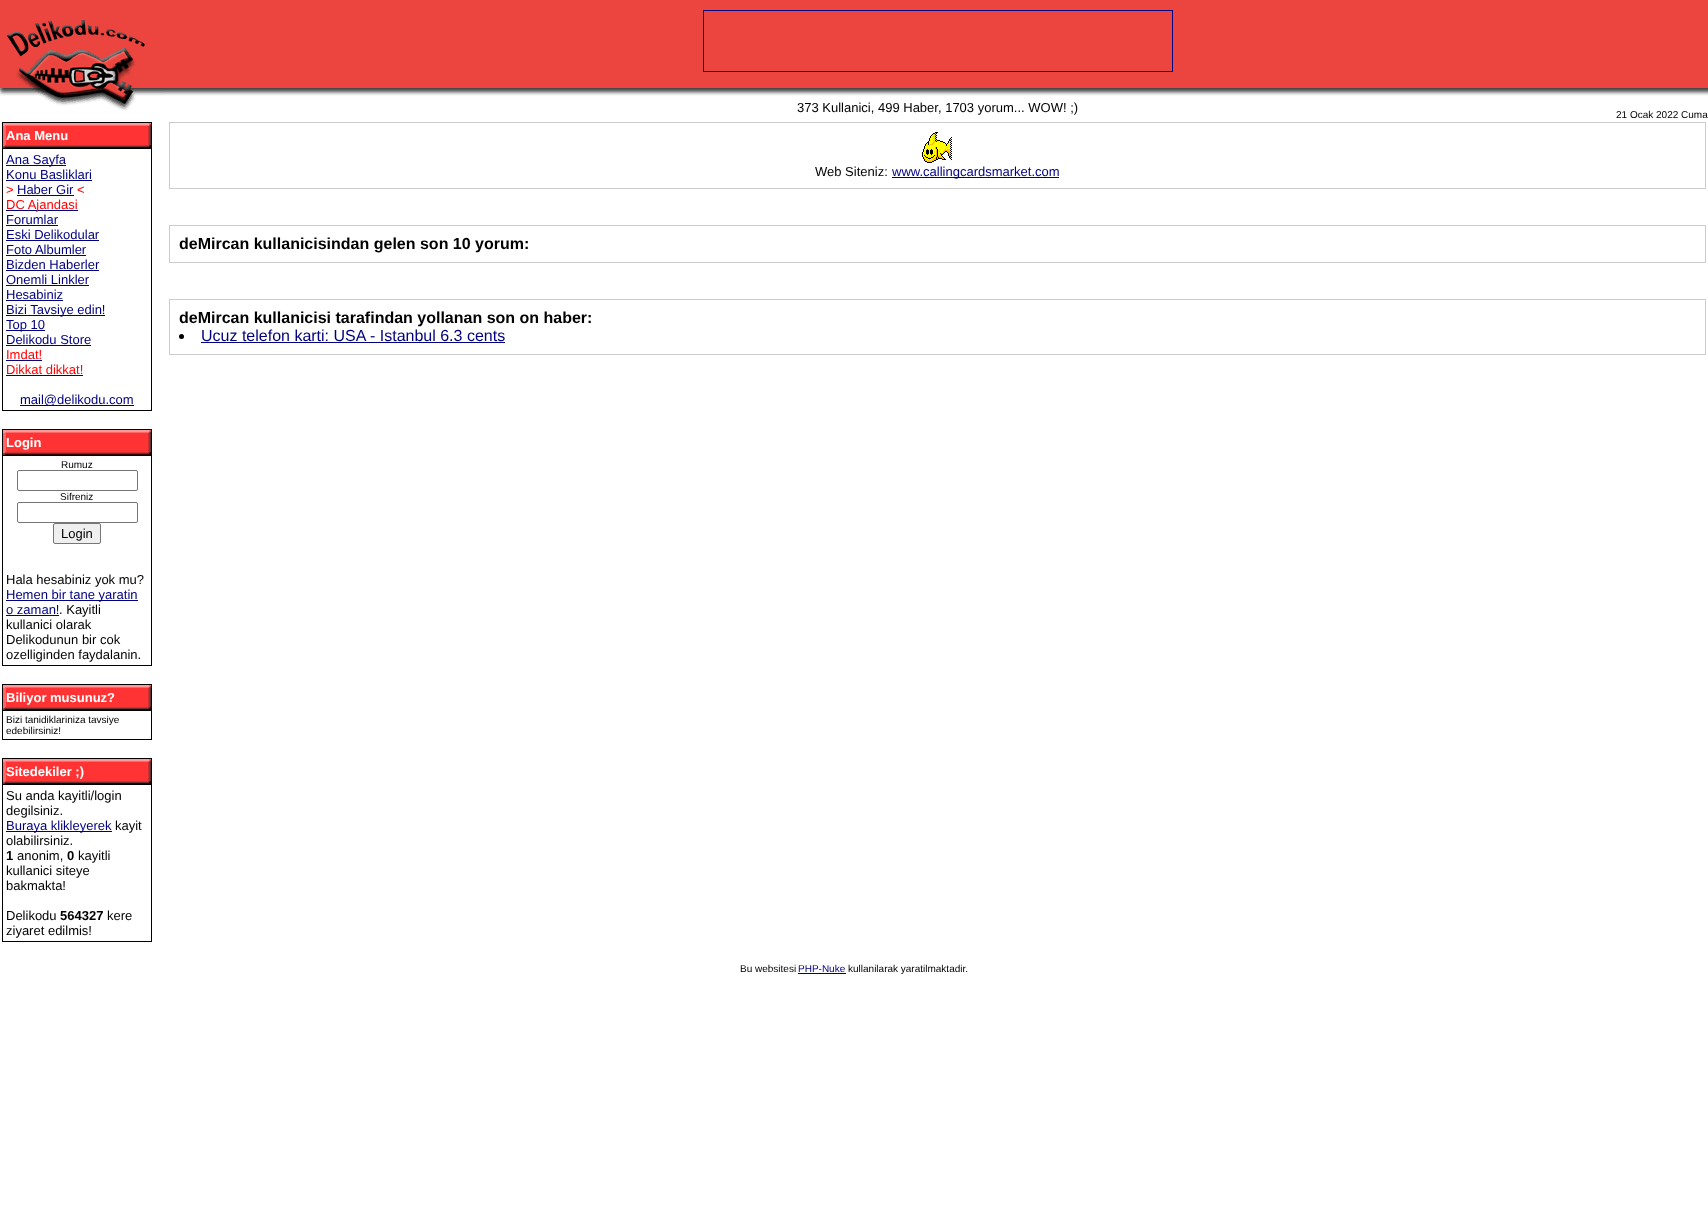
<!DOCTYPE html>
<meta charset="utf-8">
<style>body { margin: 0 } canvas { display: block }</style>
<canvas id="canvas" width="1708" height="1210"></canvas>
<script type="module">
  const canvas = document.getElementById("canvas");
  const g = canvas.getContext("2d");
  g.miterLimit = 4;
  g.fontKerning = "normal";
  function drawText(s, x, y, [font, color]) {
    g.font = font;
    g.fillStyle = color;
    g.fillText(s, x, y);
  }
  function fillBox(x, y, w, h, color) {
    g.fillStyle = color;
    g.fillRect(x, y, w, h);
  }
  async function drawPicture(src, x, y, w, h) {
    const img = new Image();
    img.src = src;
    await img.decode();
    g.drawImage(img, x, y, w, h);
  }

  const s1 = ["13px Liberation Sans", "#000000"];
  const s2 = ["10px Liberation Sans", "#000000"];
  const s3 = ["bold 13px Liberation Sans", "#FFFFFF"];
  const s4 = ["13px Liberation Sans", "#000080"];
  const s5 = ["13px Liberation Sans", "#FF0000"];
  const s6 = ["bold 13px Liberation Sans", "#000000"];
  const s7 = ["bold 16px Liberation Sans", "#000000"];
  const s8 = ["16px Liberation Sans", "#000080"];
  const s9 = ["10px Liberation Sans", "#000080"];

  fillBox(0, 0, 1708, 1210, "#FFFFFF");
  await drawPicture("pic1.png", 0, 0, 1708, 96);
  await drawPicture("pic2.png", 0, 20, 163, 91);
  g.strokeStyle = "#000080";
  g.strokeRect(703.5, 10.5, 469, 61);
  drawText("373 Kullanici, 499 Haber, 1703 yorum... WOW! ;)", 797, 112, s1);
  drawText("21 Ocak 2022 Cuma", 1616, 118, s2);
  fillBox(2, 122, 150, 289, "#000000");
  await drawPicture("pic3.png", 3, 123, 148, 25);
  drawText("Ana Menu", 6, 140, s3);
  fillBox(3, 149, 148, 261, "#FFFFFF");
  fillBox(6, 165, 60, 1, "#000080");
  drawText("Ana Sayfa", 6, 164, s4);
  drawText("Konu Basliklari", 6, 179, s4);
  fillBox(6, 180, 86, 1, "#000080");
  drawText(">", 6, 194, s5);
  drawText("Haber Gir", 17, 194, s4);
  fillBox(17, 195, 57, 1, "#000080");
  drawText("<", 77, 194, s5);
  fillBox(6, 210, 72, 1, "#000080");
  drawText("DC Ajandasi", 6, 209, s5);
  drawText("Forumlar", 6, 224, s4);
  fillBox(6, 225, 52, 1, "#000080");
  drawText("Eski Delikodular", 6, 239, s4);
  fillBox(6, 240, 93, 1, "#000080");
  drawText("Foto Albumler", 6, 254, s4);
  fillBox(6, 255, 80, 1, "#000080");
  drawText("Bizden Haberler", 6, 269, s4);
  fillBox(6, 270, 93, 1, "#000080");
  drawText("Onemli Linkler", 6, 284, s4);
  fillBox(6, 285, 83, 1, "#000080");
  drawText("Hesabiniz", 6, 299, s4);
  fillBox(6, 300, 57, 1, "#000080");
  fillBox(6, 315, 99, 1, "#000080");
  drawText("Bizi Tavsiye edin!", 6, 314, s4);
  fillBox(6, 330, 39, 1, "#000080");
  drawText("Top 10", 6, 329, s4);
  drawText("Delikodu Store", 6, 344, s4);
  fillBox(6, 345, 85, 1, "#000080");
  drawText("Imdat!", 6, 359, s5);
  fillBox(6, 360, 36, 1, "#000080");
  drawText("Dikkat dikkat!", 6, 374, s5);
  fillBox(6, 375, 77, 1, "#000080");
  fillBox(20, 405, 114, 1, "#000080");
  drawText("mail@delikodu.com", 20, 404, s4);
  fillBox(2, 429, 150, 237, "#000000");
  await drawPicture("pic3.png", 3, 430, 148, 25);
  drawText("Login", 6, 447, s3);
  fillBox(3, 456, 148, 209, "#FFFFFF");
  drawText("Rumuz", 61, 468, s2);
  g.beginPath();
  g.roundRect(17.5, 470.5, 120, 20, 1.5);
  g.strokeStyle = "#767676";
  g.stroke();
  drawText("Sifreniz", 60, 500, s2);
  g.beginPath();
  g.roundRect(17.5, 502.5, 120, 20, 1.5);
  g.stroke();
  g.fillStyle = "#EFEFEF";
  g.beginPath();
  g.roundRect(53.5, 523.5, 47, 20, 1.5);
  g.fill();
  g.stroke();
  drawText("Login", 61, 538, s1);
  drawText("Hala hesabiniz yok mu?", 6, 584, s1);
  fillBox(6, 600, 132, 1, "#000080");
  drawText("Hemen bir tane yaratin", 6, 599, s4);
  drawText("o zaman!", 6, 614, s4);
  fillBox(6, 615, 53, 1, "#000080");
  drawText(". Kayitli", 59, 614, s1);
  drawText("kullanici olarak", 6, 629, s1);
  drawText("Delikodunun bir cok", 6, 644, s1);
  drawText("ozelliginden faydalanin.", 6, 659, s1);
  fillBox(2, 684, 150, 56, "#000000");
  await drawPicture("pic3.png", 3, 685, 148, 25);
  drawText("Biliyor musunuz?", 6, 702, s3);
  fillBox(3, 711, 148, 28, "#FFFFFF");
  drawText("Bizi tanidiklariniza tavsiye", 6, 723, s2);
  drawText("edebilirsiniz!", 6, 734, s2);
  fillBox(2, 758, 150, 184, "#000000");
  await drawPicture("pic3.png", 3, 759, 148, 25);
  drawText("Sitedekiler ;)", 6, 776, s3);
  fillBox(3, 785, 148, 156, "#FFFFFF");
  drawText("Su anda kayitli/login", 6, 800, s1);
  drawText("degilsiniz.", 6, 815, s1);
  fillBox(6, 831, 106, 1, "#000080");
  drawText("Buraya klikleyerek", 6, 830, s4);
  drawText("kayit", 115, 830, s1);
  drawText("olabilirsiniz.", 6, 845, s1);
  drawText("1", 6, 860, s6);
  drawText("anonim,", 17, 860, s1);
  drawText("0", 67, 860, s6);
  drawText("kayitli", 78, 860, s1);
  drawText("kullanici siteye", 6, 875, s1);
  drawText("bakmakta!", 6, 890, s1);
  drawText("Delikodu", 6, 920, s1);
  drawText("564327", 60, 920, s6);
  drawText("kere", 107, 920, s1);
  drawText("ziyaret edilmis!", 6, 935, s1);
  fillBox(169, 122, 1537, 67, "#CCCCCC");
  fillBox(170, 123, 1535, 65, "#FFFFFF");
  await drawPicture("pic4.png", 922, 132, 30, 31);
  drawText("Web Siteniz:", 815, 176, s1);
  fillBox(892, 177, 167, 1, "#000080");
  drawText("www.callingcardsmarket.com", 892, 176, s4);
  fillBox(169, 225, 1537, 38, "#CCCCCC");
  fillBox(170, 226, 1535, 36, "#FFFFFF");
  drawText("deMircan kullanicisindan gelen son 10 yorum:", 179, 249, s7);
  fillBox(169, 299, 1537, 56, "#CCCCCC");
  fillBox(170, 300, 1535, 54, "#FFFFFF");
  drawText("deMircan kullanicisi tarafindan yollanan son on haber:", 179, 323, s7);
  g.beginPath();
  g.arc(181.5, 336.5, 2.5, 0, Math.PI * 2);
  g.fill();
  drawText("Ucuz telefon karti: USA - Istanbul 6.3 cents", 201, 341, s8);
  fillBox(201, 342, 304, 1, "#000080");
  drawText("Bu websitesi", 740, 972, s2);
  drawText("PHP-Nuke", 798, 972, s9);
  fillBox(798, 973, 48, 1, "#000080");
  drawText("kullanilarak yaratilmaktadir.", 848, 972, s2);
</script>
